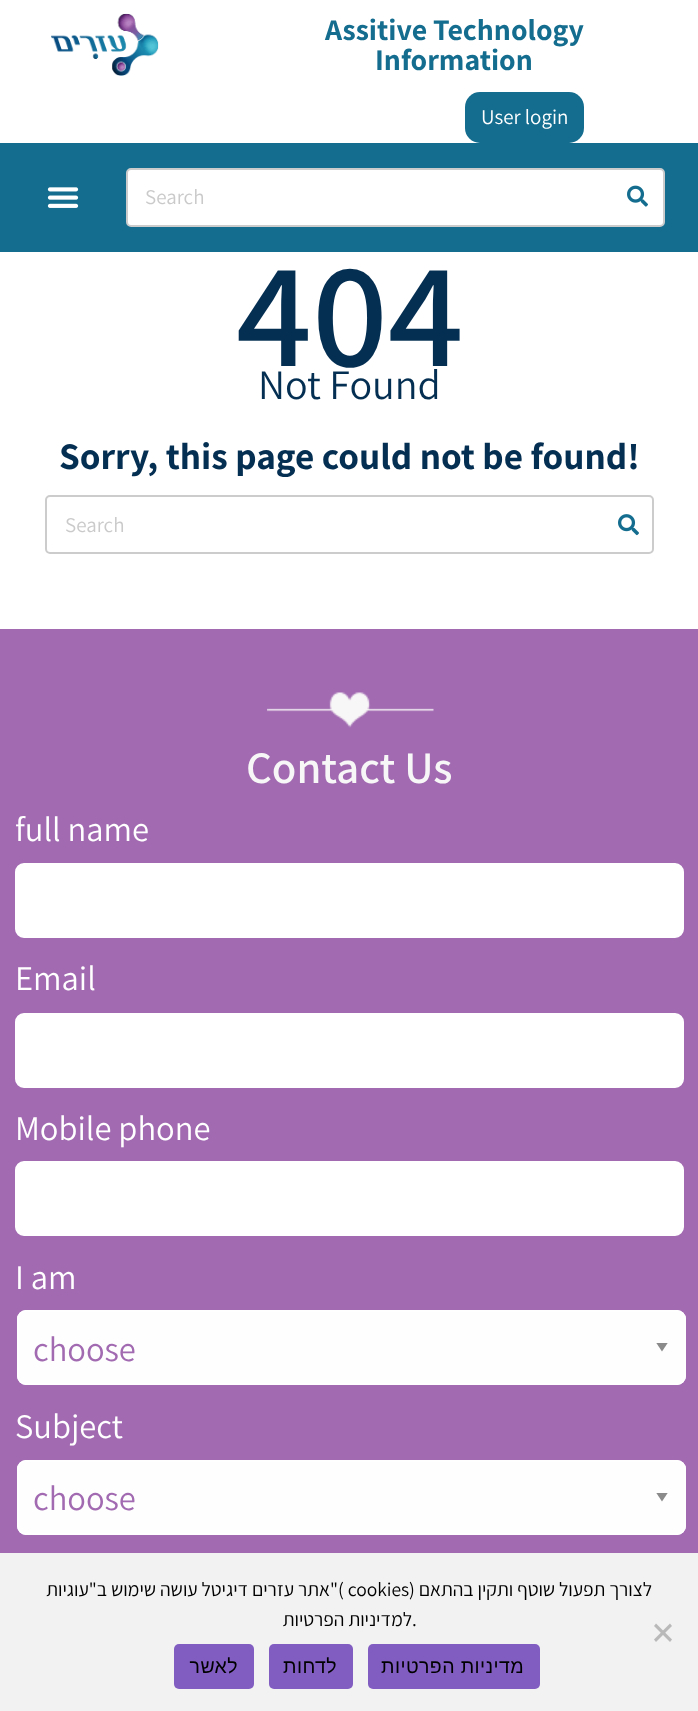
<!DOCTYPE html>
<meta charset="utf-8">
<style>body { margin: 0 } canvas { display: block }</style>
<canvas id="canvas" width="698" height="1711"></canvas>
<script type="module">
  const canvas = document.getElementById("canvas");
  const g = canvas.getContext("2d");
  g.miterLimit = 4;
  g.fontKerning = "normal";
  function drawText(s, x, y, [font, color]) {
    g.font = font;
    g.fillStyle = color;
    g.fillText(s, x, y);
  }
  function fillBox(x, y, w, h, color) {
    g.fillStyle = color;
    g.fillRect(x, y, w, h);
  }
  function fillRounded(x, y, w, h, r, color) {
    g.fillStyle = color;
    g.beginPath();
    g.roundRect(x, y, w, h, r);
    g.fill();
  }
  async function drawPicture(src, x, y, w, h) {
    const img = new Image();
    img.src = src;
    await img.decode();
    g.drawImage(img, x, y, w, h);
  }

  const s1 = ["bold 30px Assistant", "#146D8F"];
  const s2 = ["21px Assistant", "#FFFFFF"];
  const s3 = ["21px Assistant", "#CACACA"];
  const s4 = ["600 150px Assistant", "#052F52"];
  const s5 = ["42px Assistant", "#052F52"];
  const s6 = ["bold 37.5px Assistant", "#052F52"];
  const s7 = ["600 45px Assistant", "#F8F7F7"];
  const s8 = ["34.5px Assistant", "#FFFFFF"];
  const s9 = ["34.5px Assistant", "#A16AB1"];
  const s10 = ["19.5px Assistant", "#000000"];
  const s11 = ["19.5px Liberation Sans", "#000000"];

  fillBox(0, 0, 698, 1711, "#FFFFFF");
  await drawPicture("pic1.png", 51, 13, 108, 63);
  drawText("Assitive Technology", 325, 40, s1);
  drawText("Information", 375, 70, s1);
  fillRounded(465, 92, 119, 51, 15, "#146D8F");
  drawText("User login", 481, 124, s2);
  fillBox(0, 143, 698, 109, "#146D8F");
  await drawPicture("pic2.png", 47, 187, 32, 21);
  g.fillStyle = "#FFFFFF";
  g.beginPath();
  g.roundRect(127, 169, 537, 57, 4);
  g.fill();
  g.strokeStyle = "#CCCCCC";
  g.lineWidth = 2;
  g.stroke();
  drawText("Search", 145, 204, s3);
  await drawPicture("pic3.png", 627, 185, 21, 22);
  drawText("404", 236, 366, s4);
  drawText("Not Found", 258, 399, s5);
  drawText("Sorry, this page could not be found!", 59, 469, s6);
  g.beginPath();
  g.roundRect(46, 496, 607, 57, 4);
  g.stroke();
  drawText("Search", 65, 532, s3);
  await drawPicture("pic4.png", 618, 514, 21, 22);
  fillBox(0, 629, 698, 924, "#A16AB1");
  await drawPicture("pic5.png", 267, 692, 167, 36);
  drawText("Contact Us", 246, 783, s7);
  drawText("full name", 15, 841, s8);
  g.beginPath();
  g.roundRect(16, 864, 667, 73, 8);
  g.fill();
  g.strokeStyle = "#FFFFFF";
  g.stroke();
  drawText("Email", 15, 990, s8);
  g.beginPath();
  g.roundRect(16, 1014, 667, 73, 8);
  g.fill();
  g.stroke();
  drawText("Mobile phone", 15, 1140, s8);
  g.beginPath();
  g.roundRect(16, 1162, 667, 73, 8);
  g.fill();
  g.stroke();
  drawText("I am", 15, 1289, s8);
  fillRounded(17, 1310, 669, 75, 9, "#FEFEFE");
  g.save();
  g.beginPath();
  g.rect(656, 1343, 13, 9);
  g.clip();
  g.fillStyle = "#8A8A8A";
  g.beginPath();
  g.moveTo(656, 1342.5);
  g.lineTo(668, 1342.5);
  g.lineTo(662, 1351.5);
  g.closePath();
  g.fill();
  g.restore();
  g.beginPath();
  g.roundRect(18, 1311, 667, 73, 8);
  g.stroke();
  drawText("choose", 33, 1361, s9);
  drawText("Subject", 15, 1438, s8);
  fillRounded(17, 1460, 669, 75, 9, "#FEFEFE");
  g.save();
  g.beginPath();
  g.rect(656, 1493, 13, 9);
  g.clip();
  g.fillStyle = "#8A8A8A";
  g.beginPath();
  g.moveTo(656, 1492.5);
  g.lineTo(668, 1492.5);
  g.lineTo(662, 1501.5);
  g.closePath();
  g.fill();
  g.restore();
  g.beginPath();
  g.roundRect(18, 1461, 667, 73, 8);
  g.stroke();
  drawText("choose", 33, 1510, s9);
  fillBox(0, 1553, 698, 158, "#F2F2F2");
  g.direction = "rtl";
  drawText("אתר עזרים דיגיטל עושה שימוש ב\"עוגיות", 330, 1596, s10);
  g.direction = "ltr";
  drawText("\"( cookies)", 330, 1596, s10);
  g.direction = "rtl";
  drawText("לצורך תפעול שוטף ותקין בהתאם", 652, 1596, s10);
  drawText("למדיניות הפרטיות", 412, 1626, s10);
  g.direction = "ltr";
  drawText(".", 412, 1626, s10);
  g.fillStyle = "#B9B9B9";
  g.beginPath();
  g.moveTo(670, 1623.5);
  g.lineTo(672, 1626);
  g.lineTo(656, 1642);
  g.lineTo(654, 1639.5);
  g.closePath();
  g.fill();
  g.beginPath();
  g.moveTo(654, 1626);
  g.lineTo(656, 1623.5);
  g.lineTo(672, 1639.5);
  g.lineTo(670, 1642);
  g.closePath();
  g.fill();
  fillRounded(174, 1644, 80, 45, 5, "#815DC1");
  g.letterSpacing = "0.4px";
  g.direction = "rtl";
  drawText("לאשר", 238, 1673, s11);
  fillRounded(269, 1644, 84, 45, 5, "#815DC1");
  drawText("לדחות", 337, 1673, s11);
  fillRounded(368, 1644, 172, 45, 5, "#815DC1");
  drawText("מדיניות הפרטיות", 524, 1673, s11);
</script>
